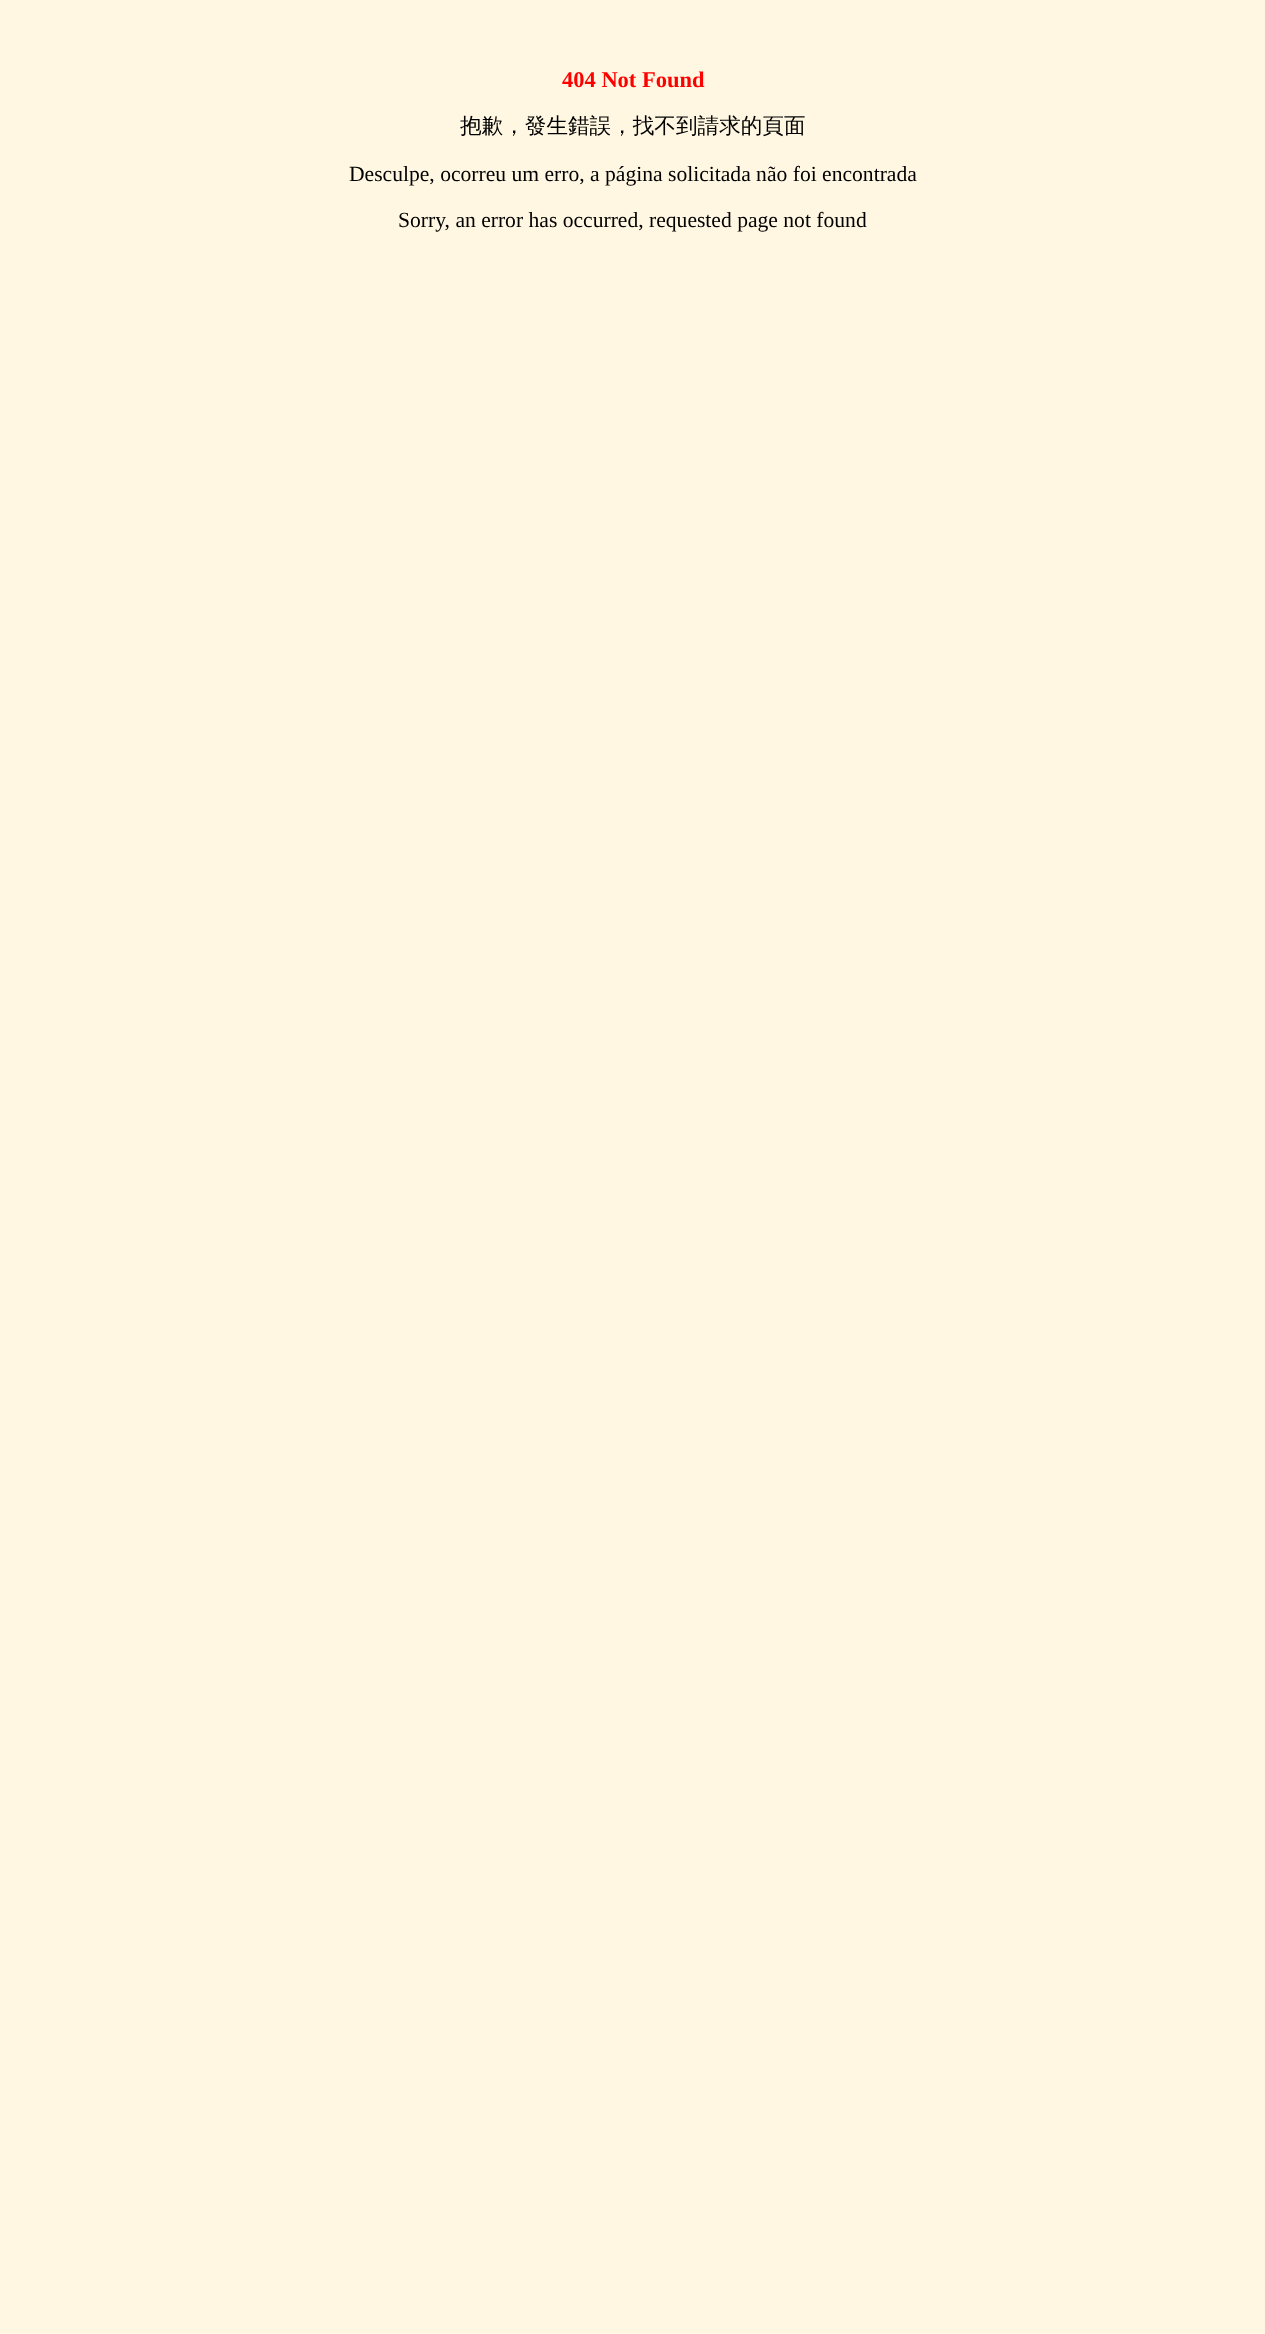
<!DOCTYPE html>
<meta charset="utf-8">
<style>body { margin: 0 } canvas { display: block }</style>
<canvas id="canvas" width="1265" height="2334"></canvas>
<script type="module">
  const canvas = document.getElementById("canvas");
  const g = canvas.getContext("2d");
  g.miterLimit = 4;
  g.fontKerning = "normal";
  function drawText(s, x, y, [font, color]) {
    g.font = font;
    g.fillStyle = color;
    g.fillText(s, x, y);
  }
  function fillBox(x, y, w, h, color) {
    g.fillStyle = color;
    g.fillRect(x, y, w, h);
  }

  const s1 = ["bold 22.5px Liberation Serif", "#FF0000"];
  const s2 = ["500 21.6px WenQuanYi Zen Hei", "#000000"];
  const s3 = ["21.6px Liberation Serif", "#000000"];

  fillBox(0, 0, 1265, 2334, "#FFF7E1");
  drawText("404 Not Found", 562, 87, s1);
  drawText("抱歉，發生錯誤，找不到請求的頁面", 460, 133, s2);
  drawText("Desculpe, ocorreu um erro, a página solicitada não foi encontrada", 349, 181, s3);
  drawText("Sorry, an error has occurred, requested page not found", 398, 227, s3);
</script>
